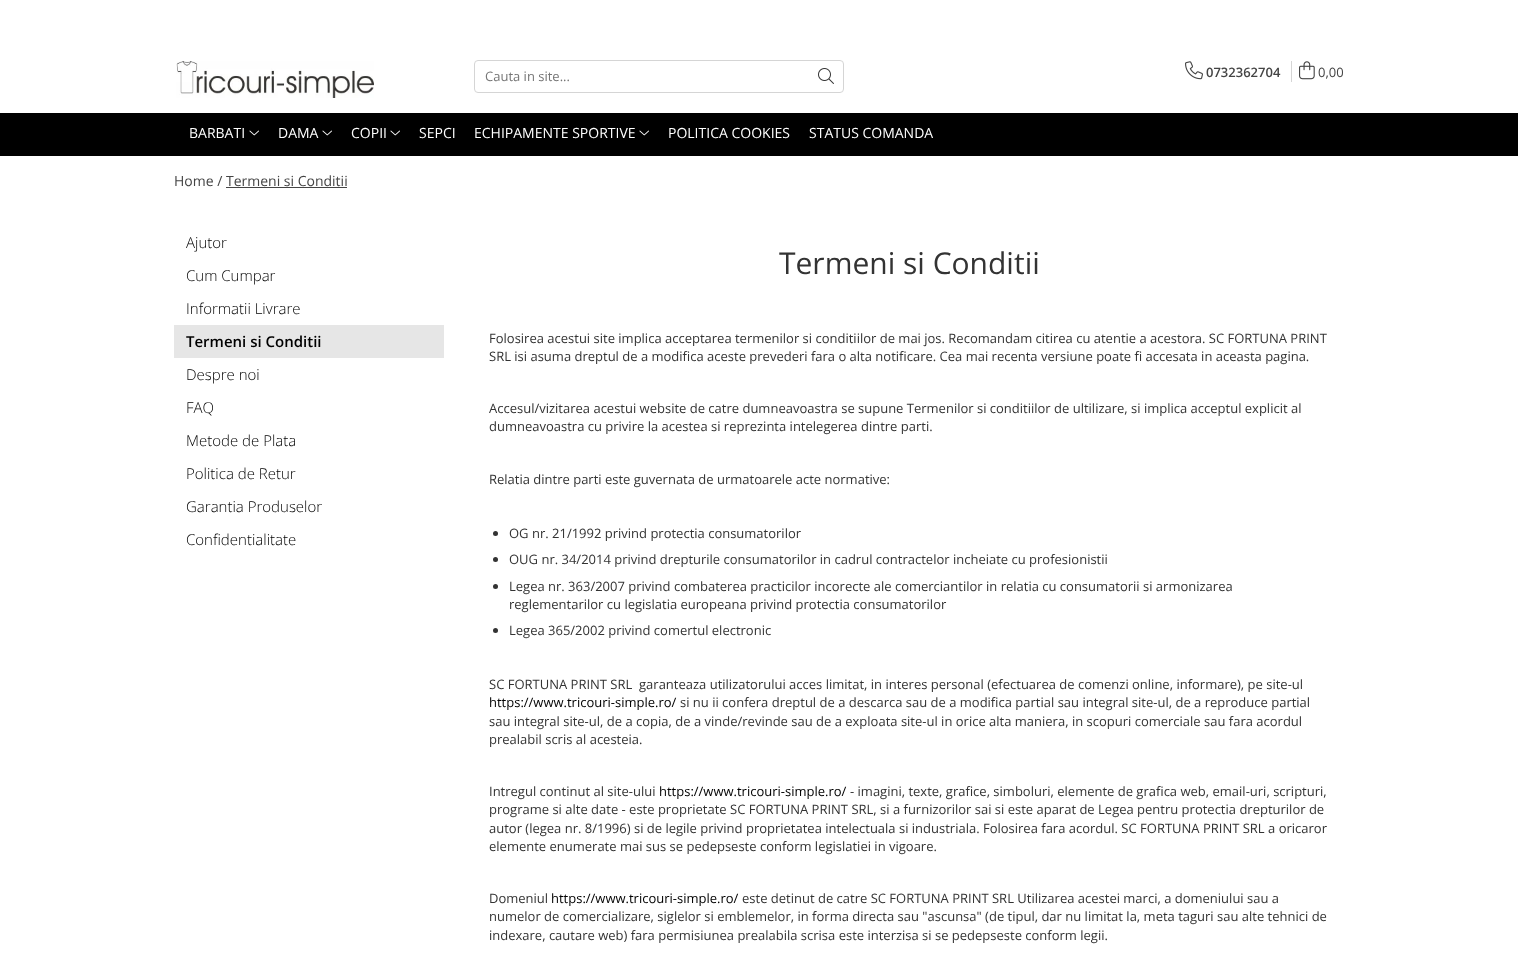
<!DOCTYPE html>
<meta charset="utf-8">
<style>body { margin: 0 } canvas { display: block }</style>
<canvas id="canvas" width="1518" height="977"></canvas>
<script type="module">
  const canvas = document.getElementById("canvas");
  const g = canvas.getContext("2d");
  g.miterLimit = 4;
  g.fontKerning = "normal";
  function drawText(s, x, y, [font, color]) {
    g.font = font;
    g.fillStyle = color;
    g.fillText(s, x, y);
  }
  function fillBox(x, y, w, h, color) {
    g.fillStyle = color;
    g.fillRect(x, y, w, h);
  }
  async function drawPicture(src, x, y, w, h) {
    const img = new Image();
    img.src = src;
    await img.decode();
    g.drawImage(img, x, y, w, h);
  }

  const s1 = ["13px Open Sans", "#757575"];
  const s2 = ["600 13px Open Sans", "#444444"];
  const s3 = ["13px Open Sans", "#444444"];
  const s4 = ["14px Open Sans", "#FFFFFF"];
  const s5 = ["14px Open Sans", "#444444"];
  const s6 = ["300 15px Open Sans", "#000000"];
  const s7 = ["600 15px Open Sans", "#000000"];
  const s8 = ["30px Open Sans", "#333333"];
  const s9 = ["13px Open Sans", "#333333"];
  const s10 = ["13px Open Sans", "#000000"];

  fillBox(0, 0, 1518, 977, "#FFFFFF");
  await drawPicture("pic1.png", 176, 61, 198, 37);
  g.beginPath();
  g.roundRect(474.5, 60.5, 369, 32, 3.5);
  g.strokeStyle = "#D5D5D5";
  g.stroke();
  drawText("Cauta in site...", 485, 81, s1);
  await drawPicture("pic2.png", 818, 68, 16, 16);
  await drawPicture("pic3.png", 1185, 61, 18, 19);
  drawText("0732362704", 1206, 77, s2);
  fillBox(1291, 61, 1, 21, "#D5D5D5");
  await drawPicture("pic4.png", 1299, 61, 16, 19);
  drawText("0,00", 1318, 77, s3);
  fillBox(0, 113, 1518, 43, "#000000");
  drawText("BARBATI", 189, 138, s4);
  await drawPicture("pic5.png", 249, 130, 10, 6);
  drawText("DAMA", 278, 138, s4);
  await drawPicture("pic5.png", 322, 130, 10, 6);
  drawText("COPII", 351, 138, s4);
  await drawPicture("pic5.png", 390, 130, 10, 6);
  drawText("SEPCI", 419, 138, s4);
  drawText("ECHIPAMENTE SPORTIVE", 474, 138, s4);
  await drawPicture("pic5.png", 639, 130, 10, 6);
  drawText("POLITICA COOKIES", 668, 138, s4);
  drawText("STATUS COMANDA", 809, 138, s4);
  drawText("Home / Termeni si Conditii", 174, 186, s5);
  fillBox(226, 187, 121, 1, "#444444");
  drawText("Ajutor", 186, 248, s6);
  drawText("Cum Cumpar", 186, 281, s6);
  drawText("Informatii Livrare", 186, 314, s6);
  fillBox(174, 325, 270, 33, "#E6E6E6");
  drawText("Termeni si Conditii", 186, 347, s7);
  drawText("Despre noi", 186, 380, s6);
  drawText("FAQ", 186, 413, s6);
  drawText("Metode de Plata", 186, 446, s6);
  drawText("Politica de Retur", 186, 479, s6);
  drawText("Garantia Produselor", 186, 512, s6);
  drawText("Confidentialitate", 186, 545, s6);
  drawText("Termeni si Conditii", 779, 274, s8);
  drawText("Folosirea acestui site implica acceptarea termenilor si conditiilor de mai jos. Recomandam citirea cu atentie a acestora. SC FORTUNA PRINT", 489, 343, s9);
  drawText("SRL isi asuma dreptul de a modifica aceste prevederi fara o alta notificare. Cea mai recenta versiune poate fi accesata in aceasta pagina.", 489, 361, s9);
  drawText("Accesul/vizitarea acestui website de catre dumneavoastra se supune Termenilor si conditiilor de ultilizare, si implica acceptul explicit al", 489, 413, s9);
  drawText("dumneavoastra cu privire la acestea si reprezinta intelegerea dintre parti.", 489, 431, s9);
  drawText("Relatia dintre parti este guvernata de urmatoarele acte normative:", 489, 484, s9);
  g.beginPath();
  g.arc(495.5, 533.5, 2.5, 0, Math.PI * 2);
  g.fill();
  drawText("OG nr. 21/1992 privind protectia consumatorilor", 509, 538, s9);
  g.beginPath();
  g.arc(495.5, 559.5, 2.5, 0, Math.PI * 2);
  g.fill();
  drawText("OUG nr. 34/2014 privind drepturile consumatorilor in cadrul contractelor incheiate cu profesionistii", 509, 564, s9);
  g.beginPath();
  g.arc(495.5, 586.5, 2.5, 0, Math.PI * 2);
  g.fill();
  drawText("Legea nr. 363/2007 privind combaterea practicilor incorecte ale comerciantilor in relatia cu consumatorii si armonizarea", 509, 591, s9);
  drawText("reglementarilor cu legislatia europeana privind protectia consumatorilor", 509, 609, s9);
  g.beginPath();
  g.arc(495.5, 630.5, 2.5, 0, Math.PI * 2);
  g.fill();
  drawText("Legea 365/2002 privind comertul electronic", 509, 635, s9);
  drawText("SC FORTUNA PRINT SRL  garanteaza utilizatorului acces limitat, in interes personal (efectuarea de comenzi online, informare), pe site-ul", 489, 689, s9);
  drawText("https://www.tricouri-simple.ro/", 489, 707, s10);
  drawText("si nu ii confera dreptul de a descarca sau de a modifica partial sau integral site-ul, de a reproduce partial", 680, 707, s9);
  drawText("sau integral site-ul, de a copia, de a vinde/revinde sau de a exploata site-ul in orice alta maniera, in scopuri comerciale sau fara acordul", 489, 726, s9);
  drawText("prealabil scris al acesteia.", 489, 744, s9);
  drawText("Intregul continut al site-ului", 489, 796, s9);
  drawText("https://www.tricouri-simple.ro/", 659, 796, s10);
  drawText("- imagini, texte, grafice, simboluri, elemente de grafica web, email-uri, scripturi,", 850, 796, s9);
  drawText("programe si alte date - este proprietate SC FORTUNA PRINT SRL, si a furnizorilor sai si este aparat de Legea pentru protectia drepturilor de", 489, 814, s9);
  drawText("autor (legea nr. 8/1996) si de legile privind proprietatea intelectuala si industriala. Folosirea fara acordul. SC FORTUNA PRINT SRL a oricaror", 489, 833, s9);
  drawText("elemente enumerate mai sus se pedepseste conform legislatiei in vigoare.", 489, 851, s9);
  drawText("Domeniul", 489, 903, s9);
  drawText("https://www.tricouri-simple.ro/", 551, 903, s10);
  drawText("este detinut de catre SC FORTUNA PRINT SRL Utilizarea acestei marci, a domeniului sau a", 742, 903, s9);
  drawText("numelor de comercializare, siglelor si emblemelor, in forma directa sau \"ascunsa\" (de tipul, dar nu limitat la, meta taguri sau alte tehnici de", 489, 921, s9);
  drawText("indexare, cautare web) fara permisiunea prealabila scrisa este interzisa si se pedepseste conform legii.", 489, 940, s9);
</script>
